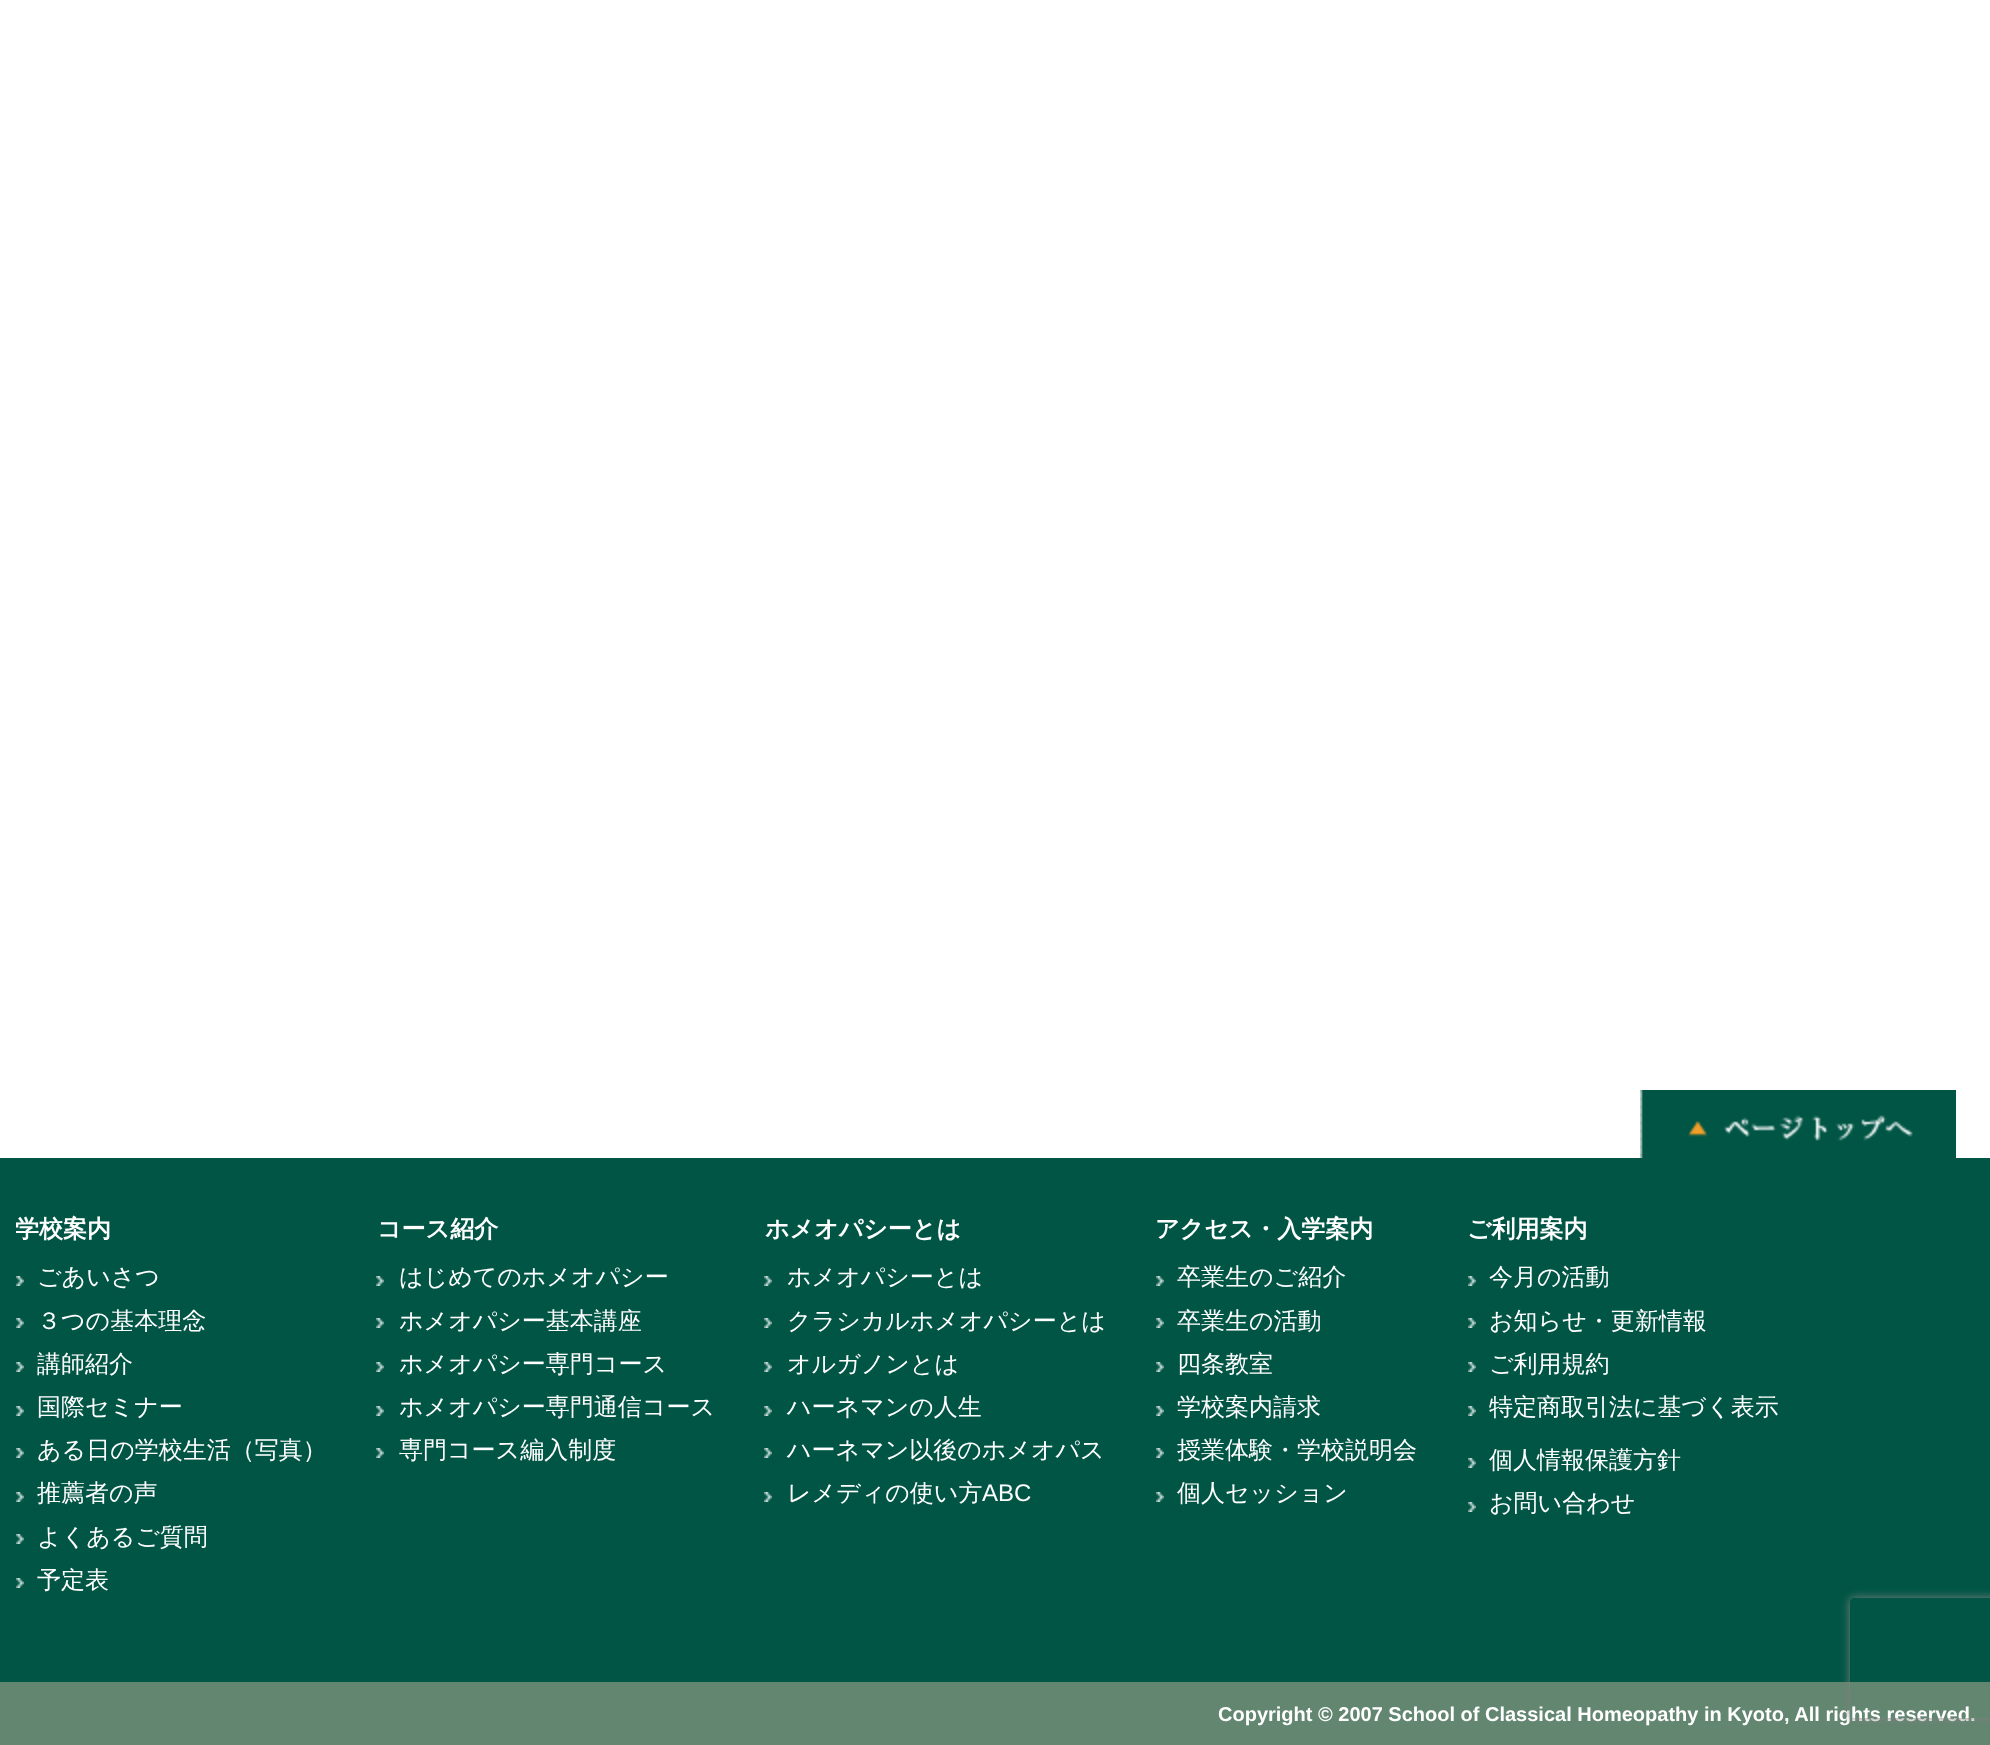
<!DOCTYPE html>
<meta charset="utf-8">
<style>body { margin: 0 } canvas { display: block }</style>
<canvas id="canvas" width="1990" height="1745"></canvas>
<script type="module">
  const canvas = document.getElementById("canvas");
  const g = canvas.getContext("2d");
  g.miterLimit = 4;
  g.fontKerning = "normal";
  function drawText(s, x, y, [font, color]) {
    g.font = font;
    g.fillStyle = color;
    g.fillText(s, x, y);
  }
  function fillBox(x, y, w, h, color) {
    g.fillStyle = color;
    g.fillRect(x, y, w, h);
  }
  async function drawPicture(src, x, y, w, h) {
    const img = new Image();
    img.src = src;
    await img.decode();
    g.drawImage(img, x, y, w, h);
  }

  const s1 = ["bold 24px WenQuanYi Zen Hei", "#FFFFFF"];
  const s2 = ["500 24px WenQuanYi Zen Hei", "#FFFFFF"];
  const s3 = ["24px Liberation Sans", "#FFFFFF"];
  const s4 = ["bold 20px Liberation Sans", "#FFFFFF"];

  fillBox(0, 0, 1990, 1745, "#FFFFFF");
  await drawPicture("pic1.png", 1640, 1090, 316, 68);
  fillBox(0, 1158, 1990, 524, "#005545");
  g.save();
  g.beginPath();
  g.rect(16, 1158, 1960, 444);
  g.clip();
  drawText("学校案内", 15, 1237, s1);
  g.restore();
  await drawPicture("pic2.png", 16, 1276, 8, 10);
  drawText("ごあいさつ", 37, 1285, s2);
  await drawPicture("pic2.png", 16, 1318, 8, 10);
  drawText("３つの基本理念", 37, 1329, s2);
  await drawPicture("pic2.png", 16, 1362, 8, 10);
  drawText("講師紹介", 37, 1372, s2);
  await drawPicture("pic2.png", 16, 1406, 8, 10);
  drawText("国際セミナー", 37, 1415, s2);
  await drawPicture("pic2.png", 16, 1448, 8, 10);
  drawText("ある日の学校生活（写真）", 37, 1458, s2);
  await drawPicture("pic2.png", 16, 1492, 8, 10);
  drawText("推薦者の声", 37, 1501, s2);
  await drawPicture("pic2.png", 16, 1534, 8, 10);
  drawText("よくあるご質問", 37, 1545, s2);
  await drawPicture("pic2.png", 16, 1578, 8, 10);
  drawText("予定表", 37, 1588, s2);
  drawText("コース紹介", 377, 1237, s1);
  await drawPicture("pic2.png", 376, 1276, 8, 10);
  drawText("はじめてのホメオパシー", 399, 1285, s2);
  await drawPicture("pic2.png", 376, 1318, 8, 10);
  drawText("ホメオパシー基本講座", 399, 1329, s2);
  await drawPicture("pic2.png", 376, 1362, 8, 10);
  drawText("ホメオパシー専門コース", 399, 1372, s2);
  await drawPicture("pic2.png", 376, 1406, 8, 10);
  drawText("ホメオパシー専門通信コース", 399, 1415, s2);
  await drawPicture("pic2.png", 376, 1448, 8, 10);
  drawText("専門コース編入制度", 399, 1458, s2);
  drawText("ホメオパシーとは", 765, 1237, s1);
  await drawPicture("pic2.png", 764, 1276, 8, 10);
  drawText("ホメオパシーとは", 787, 1285, s2);
  await drawPicture("pic2.png", 764, 1318, 8, 10);
  drawText("クラシカルホメオパシーとは", 787, 1329, s2);
  await drawPicture("pic2.png", 764, 1362, 8, 10);
  drawText("オルガノンとは", 787, 1372, s2);
  await drawPicture("pic2.png", 764, 1406, 8, 10);
  drawText("ハーネマンの人生", 787, 1415, s2);
  await drawPicture("pic2.png", 764, 1448, 8, 10);
  drawText("ハーネマン以後のホメオパス", 787, 1458, s2);
  await drawPicture("pic2.png", 764, 1492, 8, 10);
  drawText("レメディの使い方", 787, 1501, s2);
  drawText("ABC", 982, 1501, s3);
  drawText("アクセス・入学案内", 1155, 1237, s1);
  await drawPicture("pic2.png", 1156, 1276, 8, 10);
  drawText("卒業生のご紹介", 1177, 1285, s2);
  await drawPicture("pic2.png", 1156, 1318, 8, 10);
  drawText("卒業生の活動", 1177, 1329, s2);
  await drawPicture("pic2.png", 1156, 1362, 8, 10);
  drawText("四条教室", 1177, 1372, s2);
  await drawPicture("pic2.png", 1156, 1406, 8, 10);
  drawText("学校案内請求", 1177, 1415, s2);
  await drawPicture("pic2.png", 1156, 1448, 8, 10);
  drawText("授業体験・学校説明会", 1177, 1458, s2);
  await drawPicture("pic2.png", 1156, 1492, 8, 10);
  drawText("個人セッション", 1177, 1501, s2);
  drawText("ご利用案内", 1467, 1237, s1);
  await drawPicture("pic2.png", 1468, 1276, 8, 10);
  drawText("今月の活動", 1489, 1285, s2);
  await drawPicture("pic2.png", 1468, 1318, 8, 10);
  drawText("お知らせ・更新情報", 1489, 1329, s2);
  await drawPicture("pic2.png", 1468, 1362, 8, 10);
  drawText("ご利用規約", 1489, 1372, s2);
  await drawPicture("pic2.png", 1468, 1406, 8, 10);
  drawText("特定商取引法に基づく表示", 1489, 1415, s2);
  await drawPicture("pic2.png", 1468, 1458, 8, 10);
  drawText("個人情報保護方針", 1489, 1468, s2);
  await drawPicture("pic2.png", 1468, 1502, 8, 10);
  drawText("お問い合わせ", 1489, 1511, s2);
  fillBox(0, 1682, 1990, 63, "#628670");
  drawText("Copyright © 2007 School of Classical Homeopathy in Kyoto, All rights reserved.", 1218, 1721, s4);
  g.save();
  g.beginPath();
  g.moveTo(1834, 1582);
  g.lineTo(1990, 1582);
  g.lineTo(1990, 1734);
  g.lineTo(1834, 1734);
  g.closePath();
  g.moveTo(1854, 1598);
  g.lineTo(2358, 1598);
  g.bezierCurveTo(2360, 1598, 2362, 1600, 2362, 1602);
  g.lineTo(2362, 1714);
  g.bezierCurveTo(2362, 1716, 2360, 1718, 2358, 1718);
  g.lineTo(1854, 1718);
  g.bezierCurveTo(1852, 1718, 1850, 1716, 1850, 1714);
  g.lineTo(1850, 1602);
  g.bezierCurveTo(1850, 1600, 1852, 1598, 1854, 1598);
  g.closePath();
  g.clip("evenodd");
  g.fillStyle = "#808080";
  g.filter = "blur(5px)";
  g.beginPath();
  g.roundRect(1850, 1598, 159, 120, 4);
  g.fill();
  g.filter = "none";
  g.restore();
</script>
